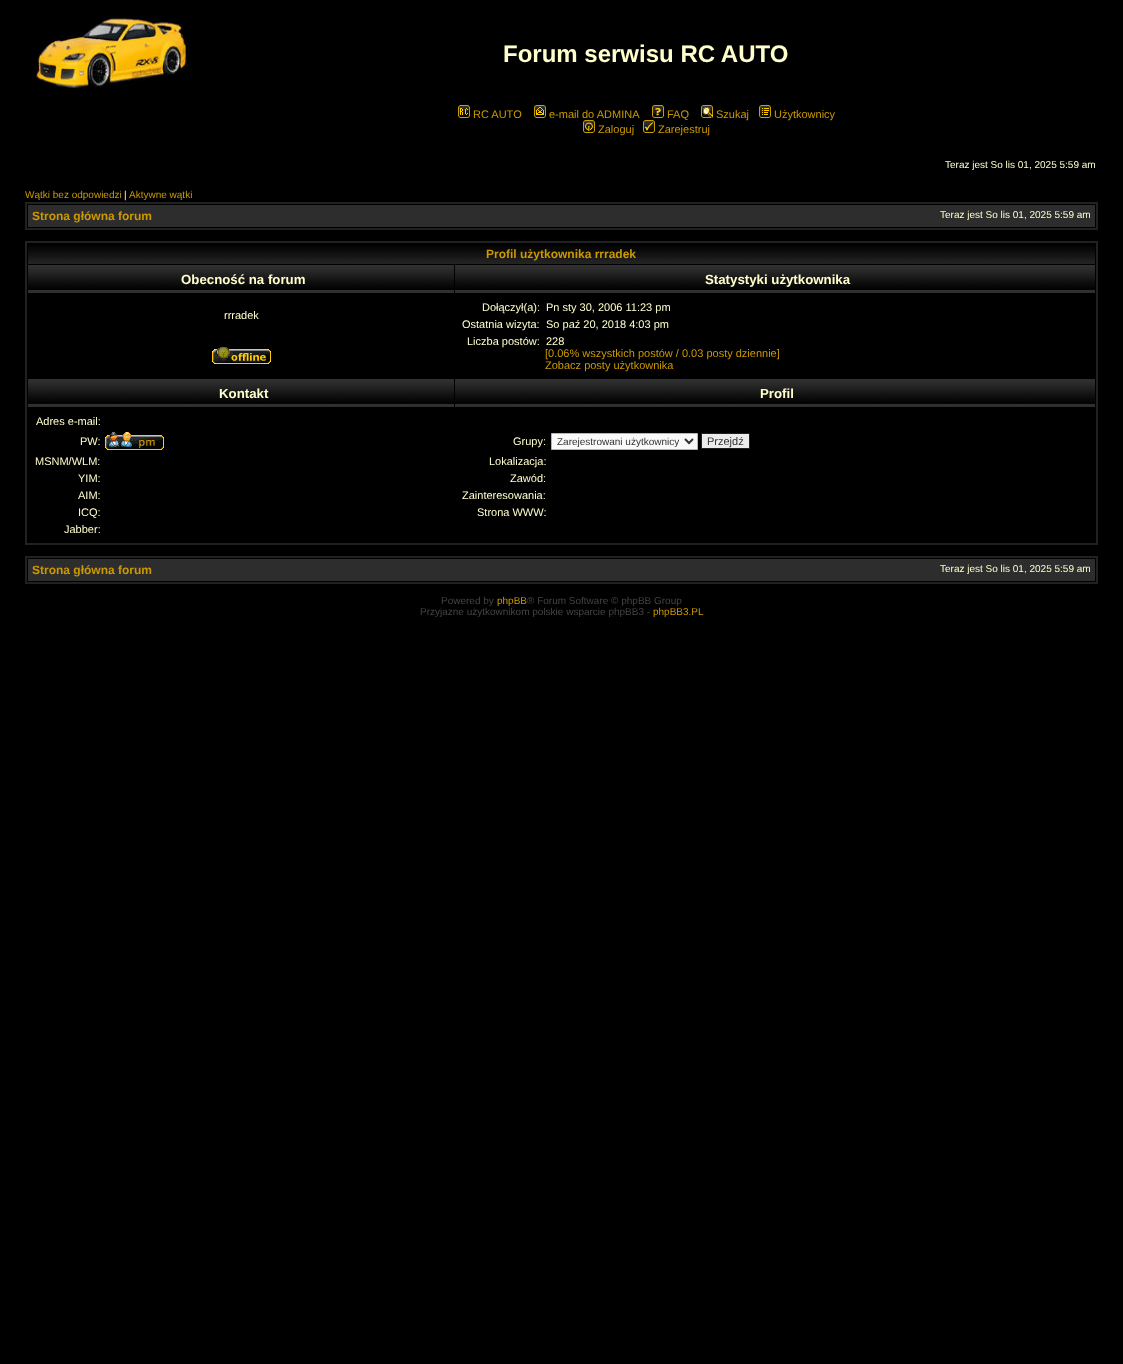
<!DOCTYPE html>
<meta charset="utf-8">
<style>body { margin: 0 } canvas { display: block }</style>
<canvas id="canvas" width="1123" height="1364"></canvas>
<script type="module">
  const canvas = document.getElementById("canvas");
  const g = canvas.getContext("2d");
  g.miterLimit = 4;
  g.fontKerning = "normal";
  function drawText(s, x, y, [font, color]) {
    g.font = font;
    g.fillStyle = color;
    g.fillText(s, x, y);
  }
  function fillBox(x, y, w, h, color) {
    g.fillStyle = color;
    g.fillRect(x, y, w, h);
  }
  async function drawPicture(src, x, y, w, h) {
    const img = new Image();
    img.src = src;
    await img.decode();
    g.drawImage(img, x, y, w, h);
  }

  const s1 = ["bold 24px Liberation Sans", "#FFFFCC"];
  const s2 = ["11px Liberation Sans", "#CC9900"];
  const s3 = ["10px Liberation Sans", "#FFFFCC"];
  const s4 = ["10px Liberation Sans", "#CC9900"];
  const s5 = ["bold 12px Liberation Sans", "#CC9900"];
  const s6 = ["bold 13.25px Liberation Sans", "#FFFFCC"];
  const s7 = ["11px Liberation Sans", "#FFFFCC"];
  const s8 = ["10px Liberation Sans", "#333333"];
  const s9 = ["11px Liberation Sans", "#333333"];
  const s10 = ["10px Liberation Sans", "#444444"];

  fillBox(0, 0, 1123, 1364, "#000000");
  await drawPicture("pic1.png", 34, 15, 156, 74);
  drawText("Forum serwisu RC AUTO", 503, 62, s1);
  await drawPicture("pic2.png", 458, 105, 12, 13);
  drawText("RC AUTO", 473, 118, s2);
  await drawPicture("pic3.png", 534, 105, 12, 13);
  drawText("e-mail do ADMINA", 549, 118, s2);
  await drawPicture("pic4.png", 652, 105, 12, 13);
  drawText("FAQ", 667, 118, s2);
  await drawPicture("pic5.png", 701, 105, 12, 13);
  drawText("Szukaj", 716, 118, s2);
  await drawPicture("pic6.png", 759, 105, 12, 13);
  drawText("Użytkownicy", 774, 118, s2);
  await drawPicture("pic7.png", 583, 120, 12, 13);
  drawText("Zaloguj", 598, 133, s2);
  await drawPicture("pic8.png", 643, 120, 12, 13);
  drawText("Zarejestruj", 658, 133, s2);
  drawText("Teraz jest So lis 01, 2025 5:59 am", 945, 168, s3);
  drawText("Wątki bez odpowiedzi", 25, 198, s4);
  drawText("|", 124, 198, s3);
  drawText("Aktywne wątki", 129, 198, s4);
  g.strokeStyle = "#212121";
  g.lineWidth = 2;
  g.strokeRect(26, 203, 1071, 26);
  fillBox(28, 205, 1067, 22, "#2D2D2D");
  drawText("Strona główna forum", 32, 220, s5);
  drawText("Teraz jest So lis 01, 2025 5:59 am", 940, 218, s3);
  g.strokeRect(26, 242, 1071, 302);
  await drawPicture("pic9.png", 28, 246, 1067, 18);
  drawText("Profil użytkownika rrradek", 486, 258, s5);
  await drawPicture("pic10.png", 28, 265, 426, 28);
  drawText("Obecność na forum", 181, 284, s6);
  await drawPicture("pic11.png", 455, 265, 640, 28);
  drawText("Statystyki użytkownika", 705, 284, s6);
  drawText("rrradek", 224, 319, s7);
  await drawPicture("pic12.png", 212, 347, 59, 17);
  drawText("Dołączył(a):", 482, 311, s7);
  drawText("Pn sty 30, 2006 11:23 pm", 546, 311, s7);
  drawText("Ostatnia wizyta:", 462, 328, s7);
  drawText("So paź 20, 2018 4:03 pm", 546, 328, s7);
  drawText("Liczba postów:", 467, 345, s7);
  drawText("228", 546, 345, s7);
  drawText("[0.06% wszystkich postów / 0.03 posty dziennie]", 545, 357, s2);
  drawText("Zobacz posty użytkownika", 545, 369, s2);
  await drawPicture("pic10.png", 28, 379, 426, 28);
  drawText("Kontakt", 219, 398, s6);
  await drawPicture("pic11.png", 455, 379, 640, 28);
  drawText("Profil", 760, 398, s6);
  drawText("Adres e-mail:", 36, 425, s7);
  drawText("PW:", 80, 445, s7);
  await drawPicture("pic13.png", 105, 432, 59, 18);
  drawText("MSNM/WLM:", 35, 465, s7);
  drawText("YIM:", 78, 482, s7);
  drawText("AIM:", 78, 499, s7);
  drawText("ICQ:", 78, 516, s7);
  drawText("Jabber:", 64, 533, s7);
  drawText("Grupy:", 513, 445, s7);
  g.fillStyle = "#FAFAFA";
  g.beginPath();
  g.rect(551.5, 433.5, 146, 16);
  g.fill();
  g.strokeStyle = "#A9B8C2";
  g.lineWidth = 1;
  g.stroke();
  g.beginPath();
  g.moveTo(685, 439);
  g.lineTo(689, 443);
  g.lineTo(693, 439);
  g.strokeStyle = "#333333";
  g.lineWidth = 2;
  g.stroke();
  drawText("Zarejestrowani użytkownicy", 557, 445, s8);
  g.fillStyle = "#ECECEC";
  g.beginPath();
  g.rect(701.5, 433.5, 48, 15);
  g.fill();
  g.strokeStyle = "#212121";
  g.lineWidth = 1;
  g.stroke();
  drawText("Przejdź", 707, 445, s9);
  drawText("Lokalizacja:", 489, 465, s7);
  drawText("Zawód:", 510, 482, s7);
  drawText("Zainteresowania:", 462, 499, s7);
  drawText("Strona WWW:", 477, 516, s7);
  g.lineWidth = 2;
  g.strokeRect(26, 557, 1071, 26);
  fillBox(28, 559, 1067, 22, "#2D2D2D");
  drawText("Strona główna forum", 32, 574, s5);
  drawText("Teraz jest So lis 01, 2025 5:59 am", 940, 572, s3);
  drawText("Powered by", 441, 604, s10);
  drawText("phpBB", 497, 604, s4);
  drawText("® Forum Software © phpBB Group", 527, 604, s10);
  drawText("Przyjazne użytkownikom polskie wsparcie phpBB3 -", 420, 615, s10);
  drawText("phpBB3.PL", 653, 615, s4);
</script>
